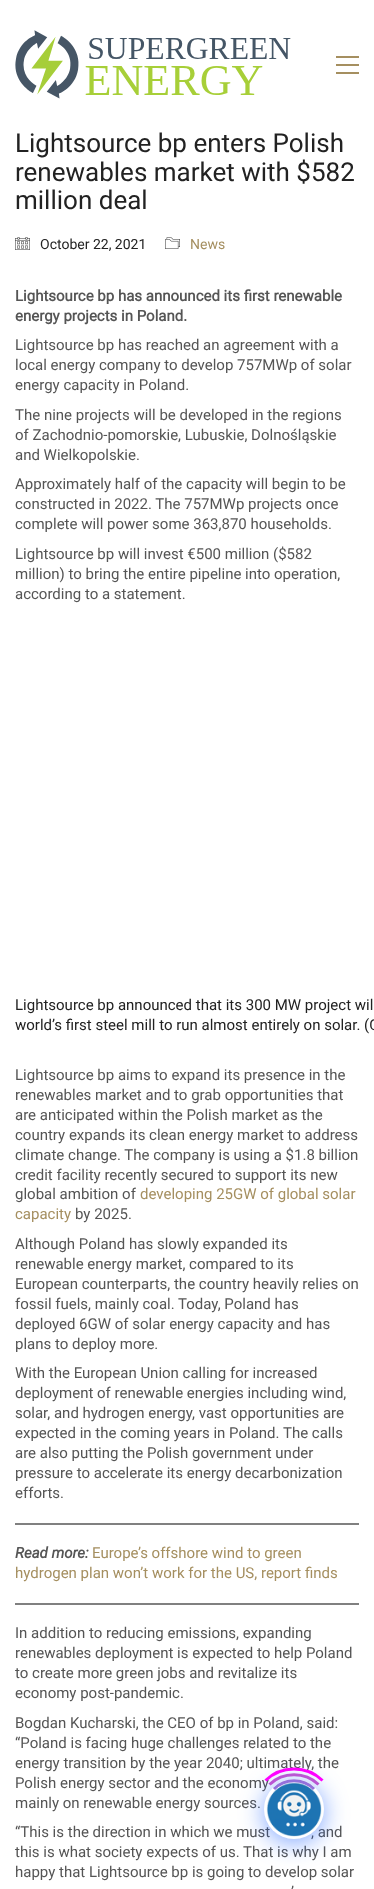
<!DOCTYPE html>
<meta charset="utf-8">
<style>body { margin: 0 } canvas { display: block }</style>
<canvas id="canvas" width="374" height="1889"></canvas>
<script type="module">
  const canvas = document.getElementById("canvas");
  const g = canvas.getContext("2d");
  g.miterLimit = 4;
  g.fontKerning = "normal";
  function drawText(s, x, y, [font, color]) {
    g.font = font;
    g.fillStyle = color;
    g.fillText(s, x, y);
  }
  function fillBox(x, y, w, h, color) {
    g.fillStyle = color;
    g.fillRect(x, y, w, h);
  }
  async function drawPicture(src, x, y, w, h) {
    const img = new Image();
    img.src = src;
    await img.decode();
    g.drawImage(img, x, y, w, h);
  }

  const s1 = ["26px Roboto", "#222222"];
  const s2 = ["14px Roboto", "#222222"];
  const s3 = ["14px Roboto", "#A58F60"];
  const s4 = ["bold 15px Roboto", "#555555"];
  const s5 = ["15px Roboto", "#555555"];
  const s6 = ["15px Roboto", "#222222"];
  const s7 = ["15px Roboto", "#A58F60"];
  const s8 = ["italic bold 15px Roboto", "#555555"];

  fillBox(0, 0, 374, 1889, "#FFFFFF");
  await drawPicture("pic1.png", 15, 30, 276, 69);
  fillBox(336, 56, 23, 2, "#A58F60");
  fillBox(336, 64, 23, 2, "#A58F60");
  fillBox(336, 72, 23, 2, "#A58F60");
  drawText("Lightsource bp enters Polish", 15, 152, s1);
  drawText("renewables market with $582", 15, 181, s1);
  drawText("million deal", 15, 209, s1);
  await drawPicture("pic2.png", 15, 237, 15, 13);
  drawText("October 22, 2021", 40, 249, s2);
  await drawPicture("pic3.png", 165, 237, 15, 12);
  drawText("News", 190, 249, s3);
  drawText("Lightsource bp has announced its first renewable", 15, 301, s4);
  drawText("energy projects in Poland.", 15, 321, s4);
  drawText("Lightsource bp has reached an agreement with a", 15, 350, s5);
  drawText("local energy company to develop 757MWp of solar", 15, 370, s5);
  drawText("energy capacity in Poland.", 15, 390, s5);
  drawText("The nine projects will be developed in the regions", 15, 420, s5);
  drawText("of Zachodnio-pomorskie, Lubuskie, Dolnośląskie", 15, 440, s5);
  drawText("and Wielkopolskie.", 15, 460, s5);
  drawText("Approximately half of the capacity will begin to be", 15, 489, s5);
  drawText("constructed in 2022. The 757MWp projects once", 15, 509, s5);
  drawText("complete will power some 363,870 households.", 15, 529, s5);
  drawText("Lightsource bp will invest €500 million ($582", 15, 559, s5);
  drawText("million) to bring the entire pipeline into operation,", 15, 579, s5);
  drawText("according to a statement.", 15, 599, s5);
  drawText("Lightsource bp announced that its 300 MW project wil", 15, 1010, s6);
  drawText("world’s first steel mill to run almost entirely on solar. (C", 15, 1030, s6);
  drawText("Lightsource bp aims to expand its presence in the", 15, 1080, s5);
  drawText("renewables market and to grab opportunities that", 15, 1100, s5);
  drawText("are anticipated within the Polish market as the", 15, 1120, s5);
  drawText("country expands its clean energy market to address", 15, 1140, s5);
  drawText("climate change. The company is using a $1.8 billion", 15, 1160, s5);
  drawText("credit facility recently secured to support its new", 15, 1180, s5);
  drawText("global ambition of", 15, 1199, s5);
  drawText("developing 25GW of global solar", 140, 1199, s7);
  drawText("capacity", 15, 1219, s7);
  drawText("by 2025.", 75, 1219, s5);
  drawText("Although Poland has slowly expanded its", 15, 1249, s5);
  drawText("renewable energy market, compared to its", 15, 1269, s5);
  drawText("European counterparts, the country heavily relies on", 15, 1289, s5);
  drawText("fossil fuels, mainly coal. Today, Poland has", 15, 1309, s5);
  drawText("deployed 6GW of solar energy capacity and has", 15, 1329, s5);
  drawText("plans to deploy more.", 15, 1349, s5);
  drawText("With the European Union calling for increased", 15, 1378, s5);
  drawText("deployment of renewable energies including wind,", 15, 1398, s5);
  drawText("solar, and hydrogen energy, vast opportunities are", 15, 1418, s5);
  drawText("expected in the coming years in Poland. The calls", 15, 1438, s5);
  drawText("are also putting the Polish government under", 15, 1458, s5);
  drawText("pressure to accelerate its energy decarbonization", 15, 1478, s5);
  drawText("efforts.", 15, 1498, s5);
  fillBox(15, 1523, 344, 2, "#808080");
  drawText("Read more:", 15, 1558, s8);
  drawText("Europe’s offshore wind to green", 92, 1558, s7);
  drawText("hydrogen plan won’t work for the US, report finds", 15, 1578, s7);
  fillBox(15, 1603, 344, 2, "#808080");
  drawText("In addition to reducing emissions, expanding", 15, 1638, s5);
  drawText("renewables deployment is expected to help Poland", 15, 1658, s5);
  drawText("to create more green jobs and revitalize its", 15, 1678, s5);
  drawText("economy post-pandemic.", 15, 1698, s5);
  drawText("Bogdan Kucharski, the CEO of bp in Poland, said:", 15, 1728, s5);
  drawText("“Poland is facing huge challenges related to the", 15, 1748, s5);
  drawText("energy transition by the year 2040; ultimately, the", 15, 1768, s5);
  drawText("Polish energy sector and the economy", 15, 1788, s5);
  drawText("mainly on renewable energy sources.", 15, 1808, s5);
  drawText("“This is the direction in which we must", 15, 1837, s5);
  drawText(", and", 311, 1837, s5);
  drawText("this is what society expects of us. That is why I am", 15, 1857, s5);
  drawText("happy that Lightsource bp is going to develop solar", 15, 1877, s5);
  drawText("’", 291, 1897, s5);
  g.fillStyle = "rgba(0, 77, 255, 0.5)";
  g.filter = "blur(12px)";
  g.beginPath();
  g.roundRect(264, 1783, 60, 60, 30);
  g.fill();
  g.filter = "none";
  g.fillStyle = "#FFFFFF";
  g.beginPath();
  g.arc(294, 1809, 30, 0, Math.PI * 2);
  g.fill();
  await drawPicture("pic4.png", 266, 1782, 56, 55);
  g.beginPath();
  g.moveTo(274, 1789);
  g.bezierCurveTo(285, 1778, 303, 1778, 314, 1789);
  g.strokeStyle = "#9370DB";
  g.lineWidth = 3;
  g.stroke();
  g.beginPath();
  g.moveTo(269.5, 1784.5);
  g.bezierCurveTo(283, 1771.5, 305, 1771.5, 318.5, 1784.5);
  g.strokeStyle = "#BA55D3";
  g.stroke();
  g.beginPath();
  g.moveTo(265.5, 1780.5);
  g.bezierCurveTo(281, 1765, 307, 1765, 322.5, 1780.5);
  g.strokeStyle = "#FF00FF";
  g.stroke();
</script>
